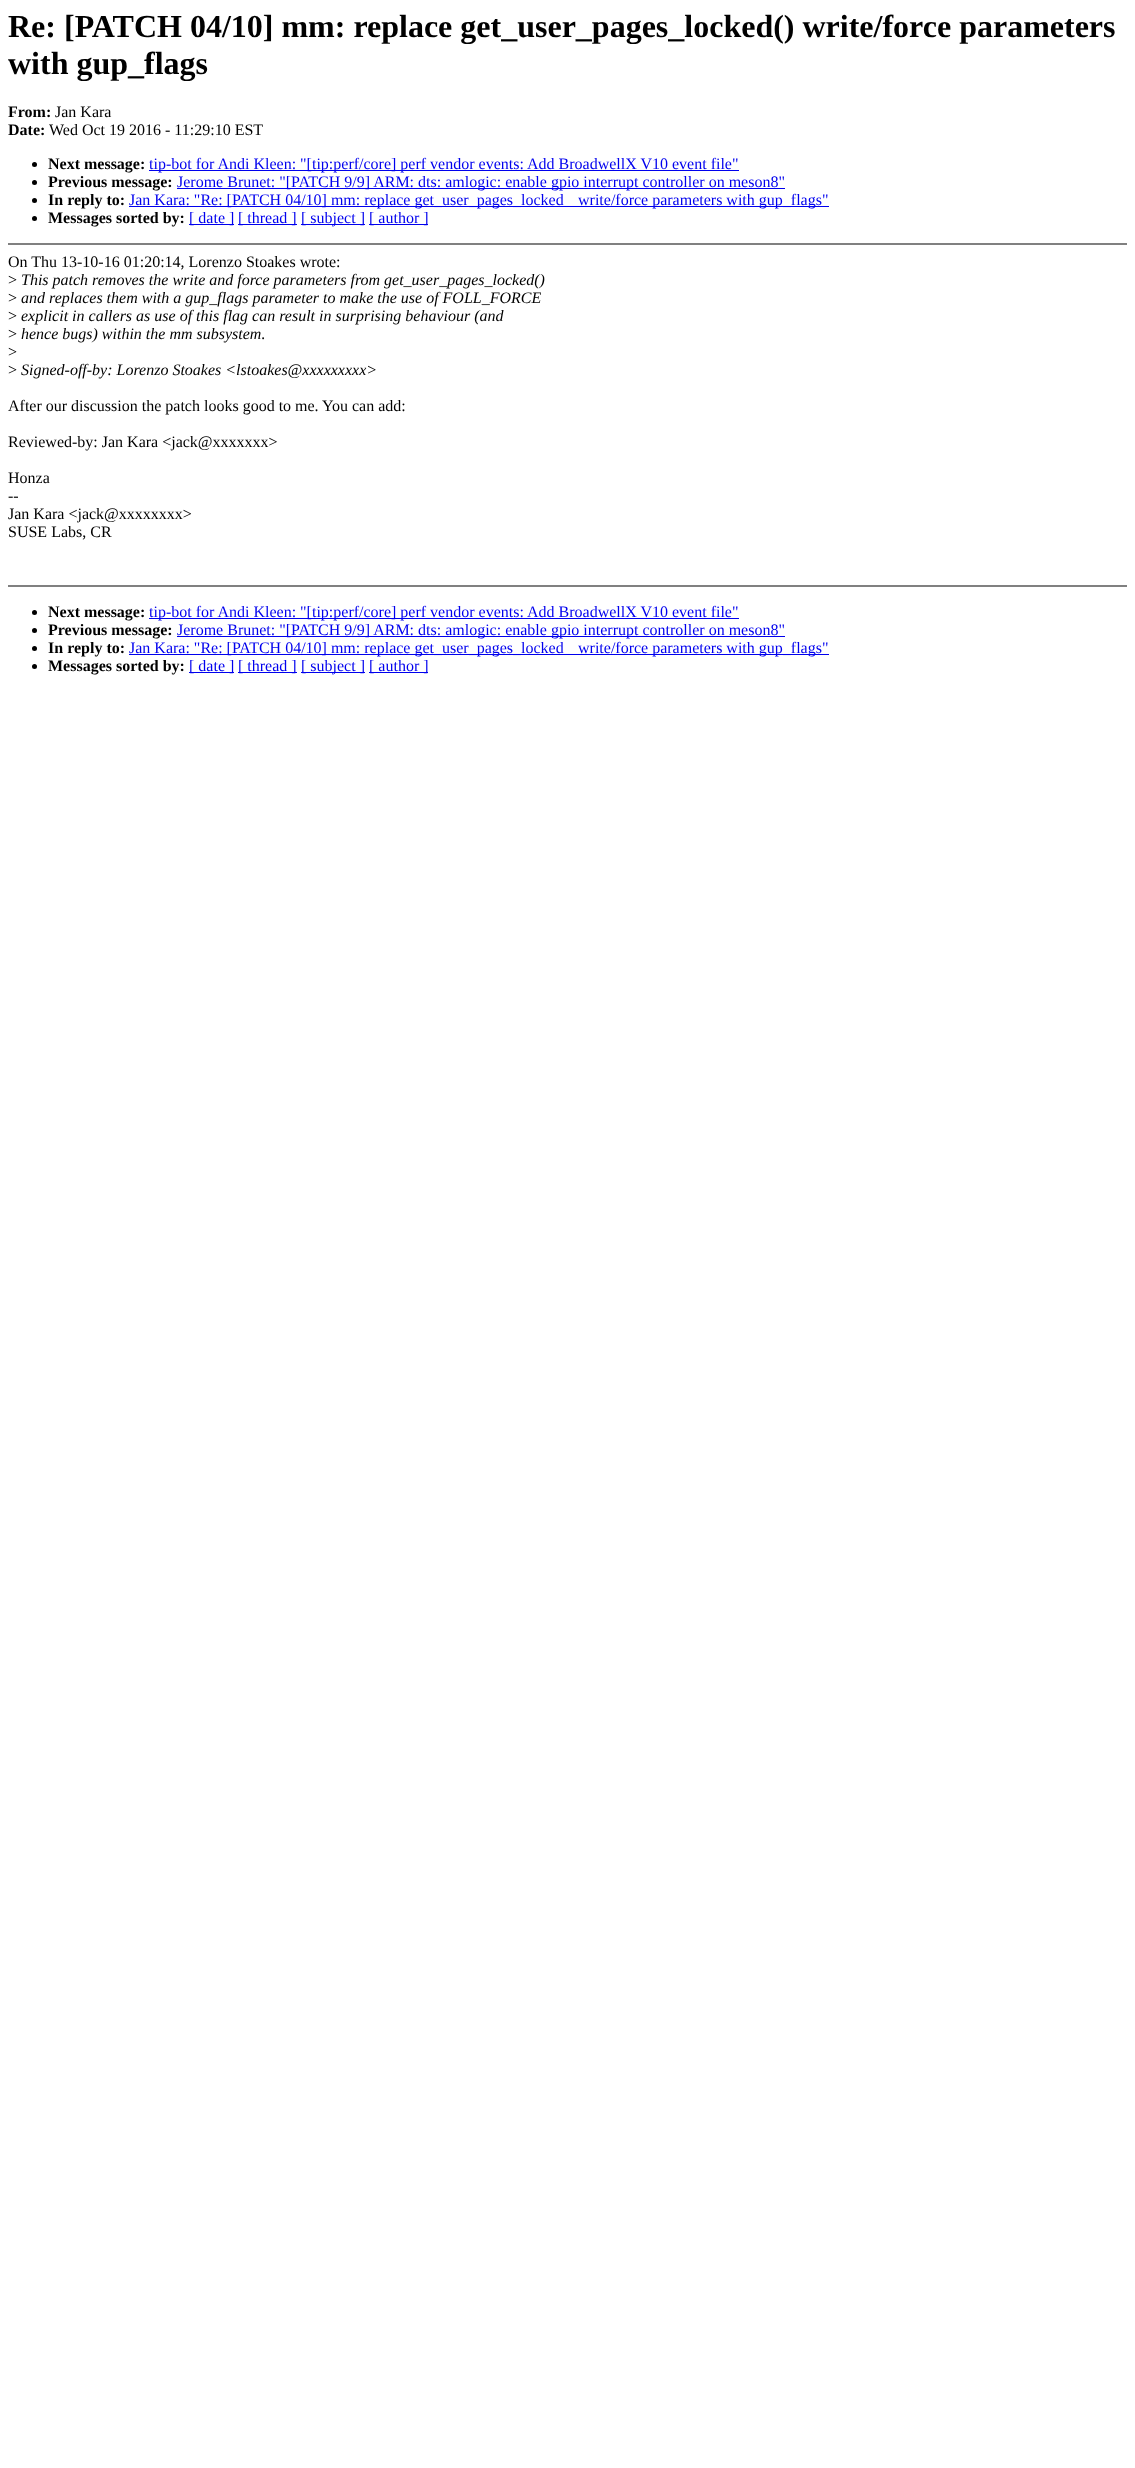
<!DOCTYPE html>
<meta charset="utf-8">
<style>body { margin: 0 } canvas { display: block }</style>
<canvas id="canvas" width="1135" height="2468"></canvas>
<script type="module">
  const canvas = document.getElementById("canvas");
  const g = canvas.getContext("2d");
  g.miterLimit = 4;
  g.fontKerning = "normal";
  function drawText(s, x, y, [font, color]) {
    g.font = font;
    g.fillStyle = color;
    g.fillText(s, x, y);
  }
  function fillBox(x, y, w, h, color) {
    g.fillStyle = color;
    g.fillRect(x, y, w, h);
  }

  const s1 = ["bold 32px Liberation Serif", "#000000"];
  const s2 = ["bold 16px Liberation Serif", "#000000"];
  const s3 = ["16px Liberation Serif", "#000000"];
  const s4 = ["16px Liberation Serif", "#0000EE"];
  const s5 = ["italic 16px Liberation Serif", "#000000"];

  fillBox(0, 0, 1135, 2468, "#FFFFFF");
  drawText("Re: [PATCH 04/10] mm: replace get_user_pages_locked() write/force parameters", 8, 37, s1);
  drawText("with gup_flags", 8, 74, s1);
  drawText("From:", 8, 117, s2);
  drawText("Jan Kara", 55, 117, s3);
  drawText("Date:", 8, 135, s2);
  drawText("Wed Oct 19 2016 - 11:29:10 EST", 49, 135, s3);
  g.beginPath();
  g.arc(34.5, 164.5, 2.5, 0, Math.PI * 2);
  g.fill();
  drawText("Next message:", 48, 169, s2);
  fillBox(149, 170, 590, 1, "#0000EE");
  drawText("tip-bot for Andi Kleen: \"[tip:perf/core] perf vendor events: Add BroadwellX V10 event file\"", 149, 169, s4);
  g.fillStyle = "#000000";
  g.beginPath();
  g.arc(34.5, 182.5, 2.5, 0, Math.PI * 2);
  g.fill();
  drawText("Previous message:", 48, 187, s2);
  fillBox(177, 188, 608, 1, "#0000EE");
  drawText("Jerome Brunet: \"[PATCH 9/9] ARM: dts: amlogic: enable gpio interrupt controller on meson8\"", 177, 187, s4);
  g.fillStyle = "#000000";
  g.beginPath();
  g.arc(34.5, 200.5, 2.5, 0, Math.PI * 2);
  g.fill();
  drawText("In reply to:", 48, 205, s2);
  fillBox(129, 206, 700, 1, "#0000EE");
  drawText("Jan Kara: \"Re: [PATCH 04/10] mm: replace get_user_pages_locked", 129, 205, s4);
  drawText("write/force parameters with gup_flags\"", 578, 205, s4);
  g.fillStyle = "#000000";
  g.beginPath();
  g.arc(34.5, 218.5, 2.5, 0, Math.PI * 2);
  g.fill();
  drawText("Messages sorted by:", 48, 223, s2);
  fillBox(189, 224, 45, 1, "#0000EE");
  drawText("[ date ]", 189, 223, s4);
  fillBox(238, 224, 59, 1, "#0000EE");
  drawText("[ thread ]", 238, 223, s4);
  fillBox(301, 224, 64, 1, "#0000EE");
  drawText("[ subject ]", 301, 223, s4);
  fillBox(369, 224, 59, 1, "#0000EE");
  drawText("[ author ]", 369, 223, s4);
  fillBox(8, 243, 1119, 2, "#808080");
  drawText("On Thu 13-10-16 01:20:14, Lorenzo Stoakes wrote:", 8, 267, s3);
  drawText(">", 8, 285, s3);
  drawText("This patch removes the write and force parameters from get_user_pages_locked()", 21, 285, s5);
  drawText(">", 8, 303, s3);
  drawText("and replaces them with a gup_flags parameter to make the use of FOLL_FORCE", 21, 303, s5);
  drawText(">", 8, 321, s3);
  drawText("explicit in callers as use of this flag can result in surprising behaviour (and", 21, 321, s5);
  drawText(">", 8, 339, s3);
  drawText("hence bugs) within the mm subsystem.", 21, 339, s5);
  drawText(">", 8, 357, s3);
  drawText(">", 8, 375, s3);
  drawText("Signed-off-by: Lorenzo Stoakes <lstoakes@xxxxxxxxx>", 21, 375, s5);
  drawText("After our discussion the patch looks good to me. You can add:", 8, 411, s3);
  drawText("Reviewed-by: Jan Kara <jack@xxxxxxx>", 8, 447, s3);
  drawText("Honza", 8, 483, s3);
  drawText("--", 8, 501, s3);
  drawText("Jan Kara <jack@xxxxxxxx>", 8, 519, s3);
  drawText("SUSE Labs, CR", 8, 537, s3);
  fillBox(8, 585, 1119, 2, "#808080");
  g.fillStyle = "#000000";
  g.beginPath();
  g.arc(34.5, 612.5, 2.5, 0, Math.PI * 2);
  g.fill();
  drawText("Next message:", 48, 617, s2);
  fillBox(149, 618, 590, 1, "#0000EE");
  drawText("tip-bot for Andi Kleen: \"[tip:perf/core] perf vendor events: Add BroadwellX V10 event file\"", 149, 617, s4);
  g.fillStyle = "#000000";
  g.beginPath();
  g.arc(34.5, 630.5, 2.5, 0, Math.PI * 2);
  g.fill();
  drawText("Previous message:", 48, 635, s2);
  fillBox(177, 636, 608, 1, "#0000EE");
  drawText("Jerome Brunet: \"[PATCH 9/9] ARM: dts: amlogic: enable gpio interrupt controller on meson8\"", 177, 635, s4);
  g.fillStyle = "#000000";
  g.beginPath();
  g.arc(34.5, 648.5, 2.5, 0, Math.PI * 2);
  g.fill();
  drawText("In reply to:", 48, 653, s2);
  fillBox(129, 654, 700, 1, "#0000EE");
  drawText("Jan Kara: \"Re: [PATCH 04/10] mm: replace get_user_pages_locked", 129, 653, s4);
  drawText("write/force parameters with gup_flags\"", 578, 653, s4);
  g.fillStyle = "#000000";
  g.beginPath();
  g.arc(34.5, 666.5, 2.5, 0, Math.PI * 2);
  g.fill();
  drawText("Messages sorted by:", 48, 671, s2);
  fillBox(189, 672, 45, 1, "#0000EE");
  drawText("[ date ]", 189, 671, s4);
  fillBox(238, 672, 59, 1, "#0000EE");
  drawText("[ thread ]", 238, 671, s4);
  fillBox(301, 672, 64, 1, "#0000EE");
  drawText("[ subject ]", 301, 671, s4);
  fillBox(369, 672, 59, 1, "#0000EE");
  drawText("[ author ]", 369, 671, s4);
</script>
